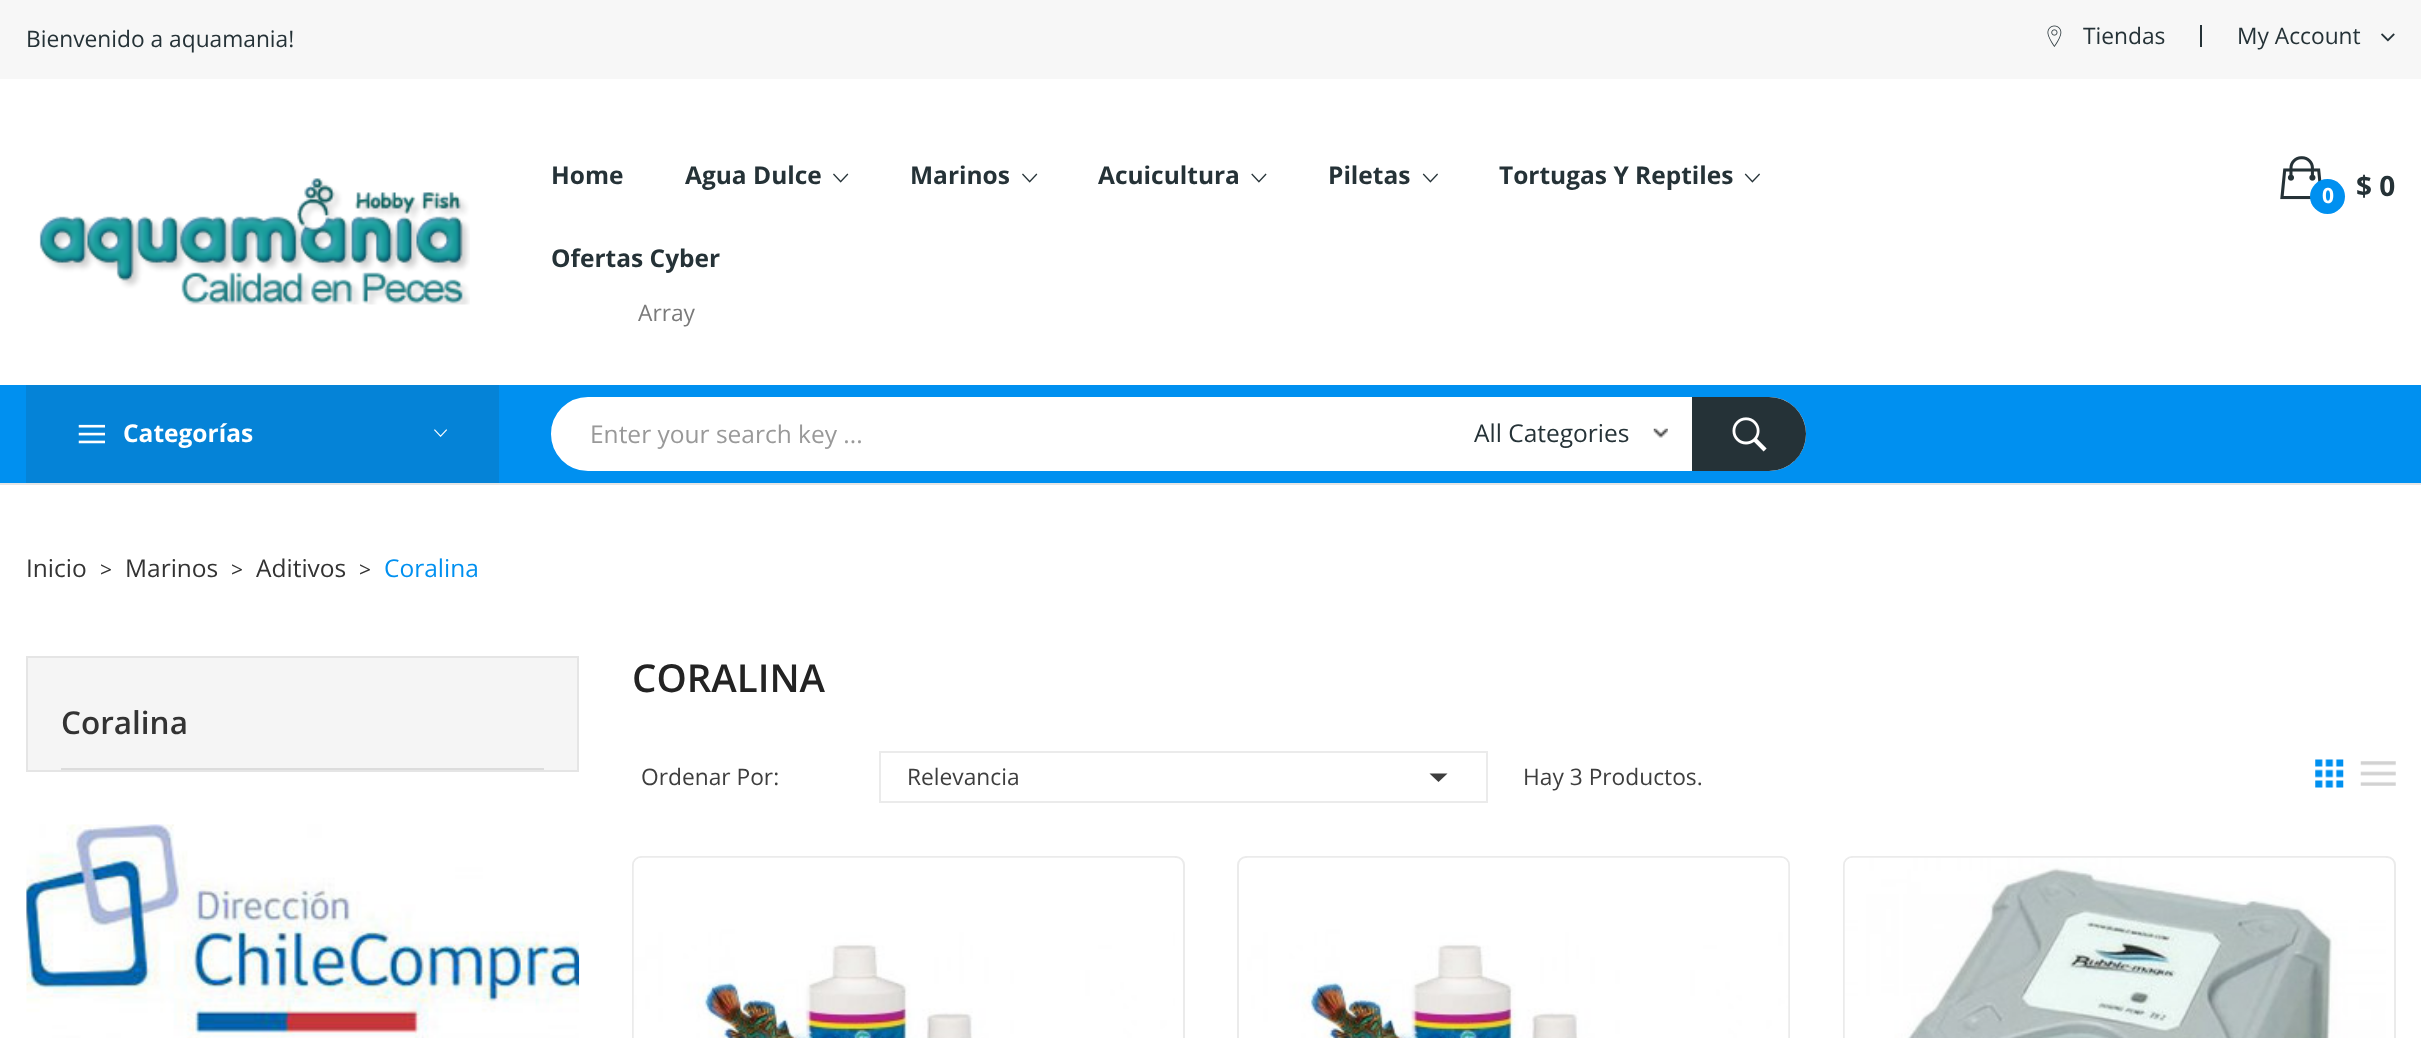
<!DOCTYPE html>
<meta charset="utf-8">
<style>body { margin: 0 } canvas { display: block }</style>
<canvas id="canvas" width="2421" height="1038"></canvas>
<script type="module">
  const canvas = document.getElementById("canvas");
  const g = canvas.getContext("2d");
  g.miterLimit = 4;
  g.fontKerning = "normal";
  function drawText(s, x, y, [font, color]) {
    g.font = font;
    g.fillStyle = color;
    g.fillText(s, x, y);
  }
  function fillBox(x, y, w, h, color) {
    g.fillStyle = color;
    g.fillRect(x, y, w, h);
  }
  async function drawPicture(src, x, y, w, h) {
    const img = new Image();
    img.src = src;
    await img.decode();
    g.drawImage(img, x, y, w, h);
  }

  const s1 = ["22.75px Open Sans", "#253237"];
  const s2 = ["bold 24.5px Open Sans", "#253237"];
  const s3 = ["22.75px Open Sans", "#7A7A7A"];
  const s4 = ["bold 21px Open Sans", "#FFFFFF"];
  const s5 = ["bold 28px Open Sans", "#253237"];
  const s6 = ["bold 24.5px Open Sans", "#FFFFFF"];
  const s7 = ["24.5px Open Sans", "#999999"];
  const s8 = ["24.5px Open Sans", "#253237"];
  const s9 = ["24.5px Open Sans", "#333333"];
  const s10 = ["21px Open Sans", "#333333"];
  const s11 = ["24.5px Open Sans", "#0090F0"];
  const s12 = ["600 31.5px Open Sans", "#333333"];
  const s13 = ["600 38.5px Open Sans", "#232323"];
  const s14 = ["22.75px Open Sans", "#3E3E3E"];

  fillBox(0, 0, 2421, 1038, "#FFFFFF");
  fillBox(0, 0, 2421, 79, "#F7F7F7");
  drawText("Bienvenido a aquamania!", 26, 47, s1);
  fillBox(2200, 25, 2, 22, "#253237");
  await drawPicture("pic1.png", 2047, 25, 15, 22);
  drawText("Tiendas", 2083, 44, s1);
  drawText("My Account", 2237, 44, s1);
  await drawPicture("pic2.png", 2381, 33, 14, 9);
  await drawPicture("pic3.png", 39, 178, 431, 127);
  drawText("Home", 551, 184, s2);
  drawText("Agua Dulce", 685, 184, s2);
  await drawPicture("pic4.png", 833, 173, 16, 10);
  drawText("Marinos", 910, 184, s2);
  await drawPicture("pic4.png", 1022, 173, 16, 10);
  drawText("Acuicultura", 1098, 184, s2);
  await drawPicture("pic5.png", 1251, 173, 16, 10);
  drawText("Piletas", 1328, 184, s2);
  await drawPicture("pic6.png", 1422, 173, 16, 10);
  drawText("Tortugas Y Reptiles", 1499, 184, s2);
  await drawPicture("pic6.png", 1744, 173, 16, 10);
  drawText("Ofertas Cyber", 551, 267, s2);
  drawText("Array", 638, 321, s3);
  await drawPicture("pic7.png", 2280, 156, 42, 44);
  g.fillStyle = "#0090F0";
  g.beginPath();
  g.arc(2327.5, 196.5, 17.5, 0, Math.PI * 2);
  g.fill();
  drawText("0", 2322, 203, s4);
  drawText("$ 0", 2356, 196, s5);
  fillBox(0, 385, 2421, 98, "#0090F0");
  fillBox(0, 483, 2421, 2, "#E5E5E5");
  fillBox(26, 385, 473, 98, "#0583D7");
  await drawPicture("pic8.png", 78, 424, 27, 20);
  drawText("Categorías", 123, 442, s6);
  await drawPicture("pic9.png", 434, 429, 13, 8);
  g.beginPath();
  g.roundRect(553, 399, 1251, 70, 35);
  g.fill();
  g.strokeStyle = "#FFFFFF";
  g.lineWidth = 4;
  g.stroke();
  drawText("Enter your search key ...", 590, 443, s7);
  await drawPicture("pic10.png", 1653, 428, 15, 10);
  drawText("All Categories", 1474, 442, s8);
  g.beginPath();
  g.roundRect(1692, 397, 114, 74, [0, 37, 37, 0]);
  g.fill();
  await drawPicture("pic11.png", 1732, 417, 35, 35);
  drawText("Inicio", 26, 577, s9);
  drawText(">", 100, 577, s10);
  drawText("Marinos", 125, 577, s9);
  drawText(">", 231, 577, s10);
  drawText("Aditivos", 256, 577, s9);
  drawText(">", 359, 577, s10);
  drawText("Coralina", 384, 577, s11);
  g.fillStyle = "#F5F5F5";
  g.beginPath();
  g.rect(27, 657, 551, 114);
  g.fill();
  g.strokeStyle = "#E5E5E5";
  g.lineWidth = 2;
  g.stroke();
  fillBox(61, 768, 483, 2, "#DCDCDC");
  drawText("Coralina", 61, 734, s12);
  await drawPicture("pic12.png", 26, 824, 554, 214);
  drawText("CORALINA", 632, 692, s13);
  drawText("Ordenar Por:", 641, 785, s14);
  g.strokeStyle = "#EBEBEB";
  g.strokeRect(880, 752, 607, 50);
  drawText("Relevancia", 907, 785, s14);
  g.beginPath();
  g.moveTo(1429.5, 773.5);
  g.lineTo(1447.5, 773.5);
  g.lineTo(1438.5, 782);
  g.closePath();
  g.fill();
  drawText("Hay 3 Productos.", 1523, 785, s14);
  await drawPicture("pic13.png", 2315, 759, 29, 29);
  await drawPicture("pic14.png", 2360, 761, 36, 25);
  g.beginPath();
  g.roundRect(633, 857, 551, 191, 8);
  g.stroke();
  await drawPicture("pic15.png", 633, 857, 542, 181);
  g.beginPath();
  g.roundRect(1238, 857, 551, 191, 8);
  g.stroke();
  await drawPicture("pic16.png", 1247, 857, 542, 181);
  g.beginPath();
  g.roundRect(1844, 857, 551, 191, 8);
  g.stroke();
  await drawPicture("pic17.png", 1844, 857, 542, 181);
</script>
